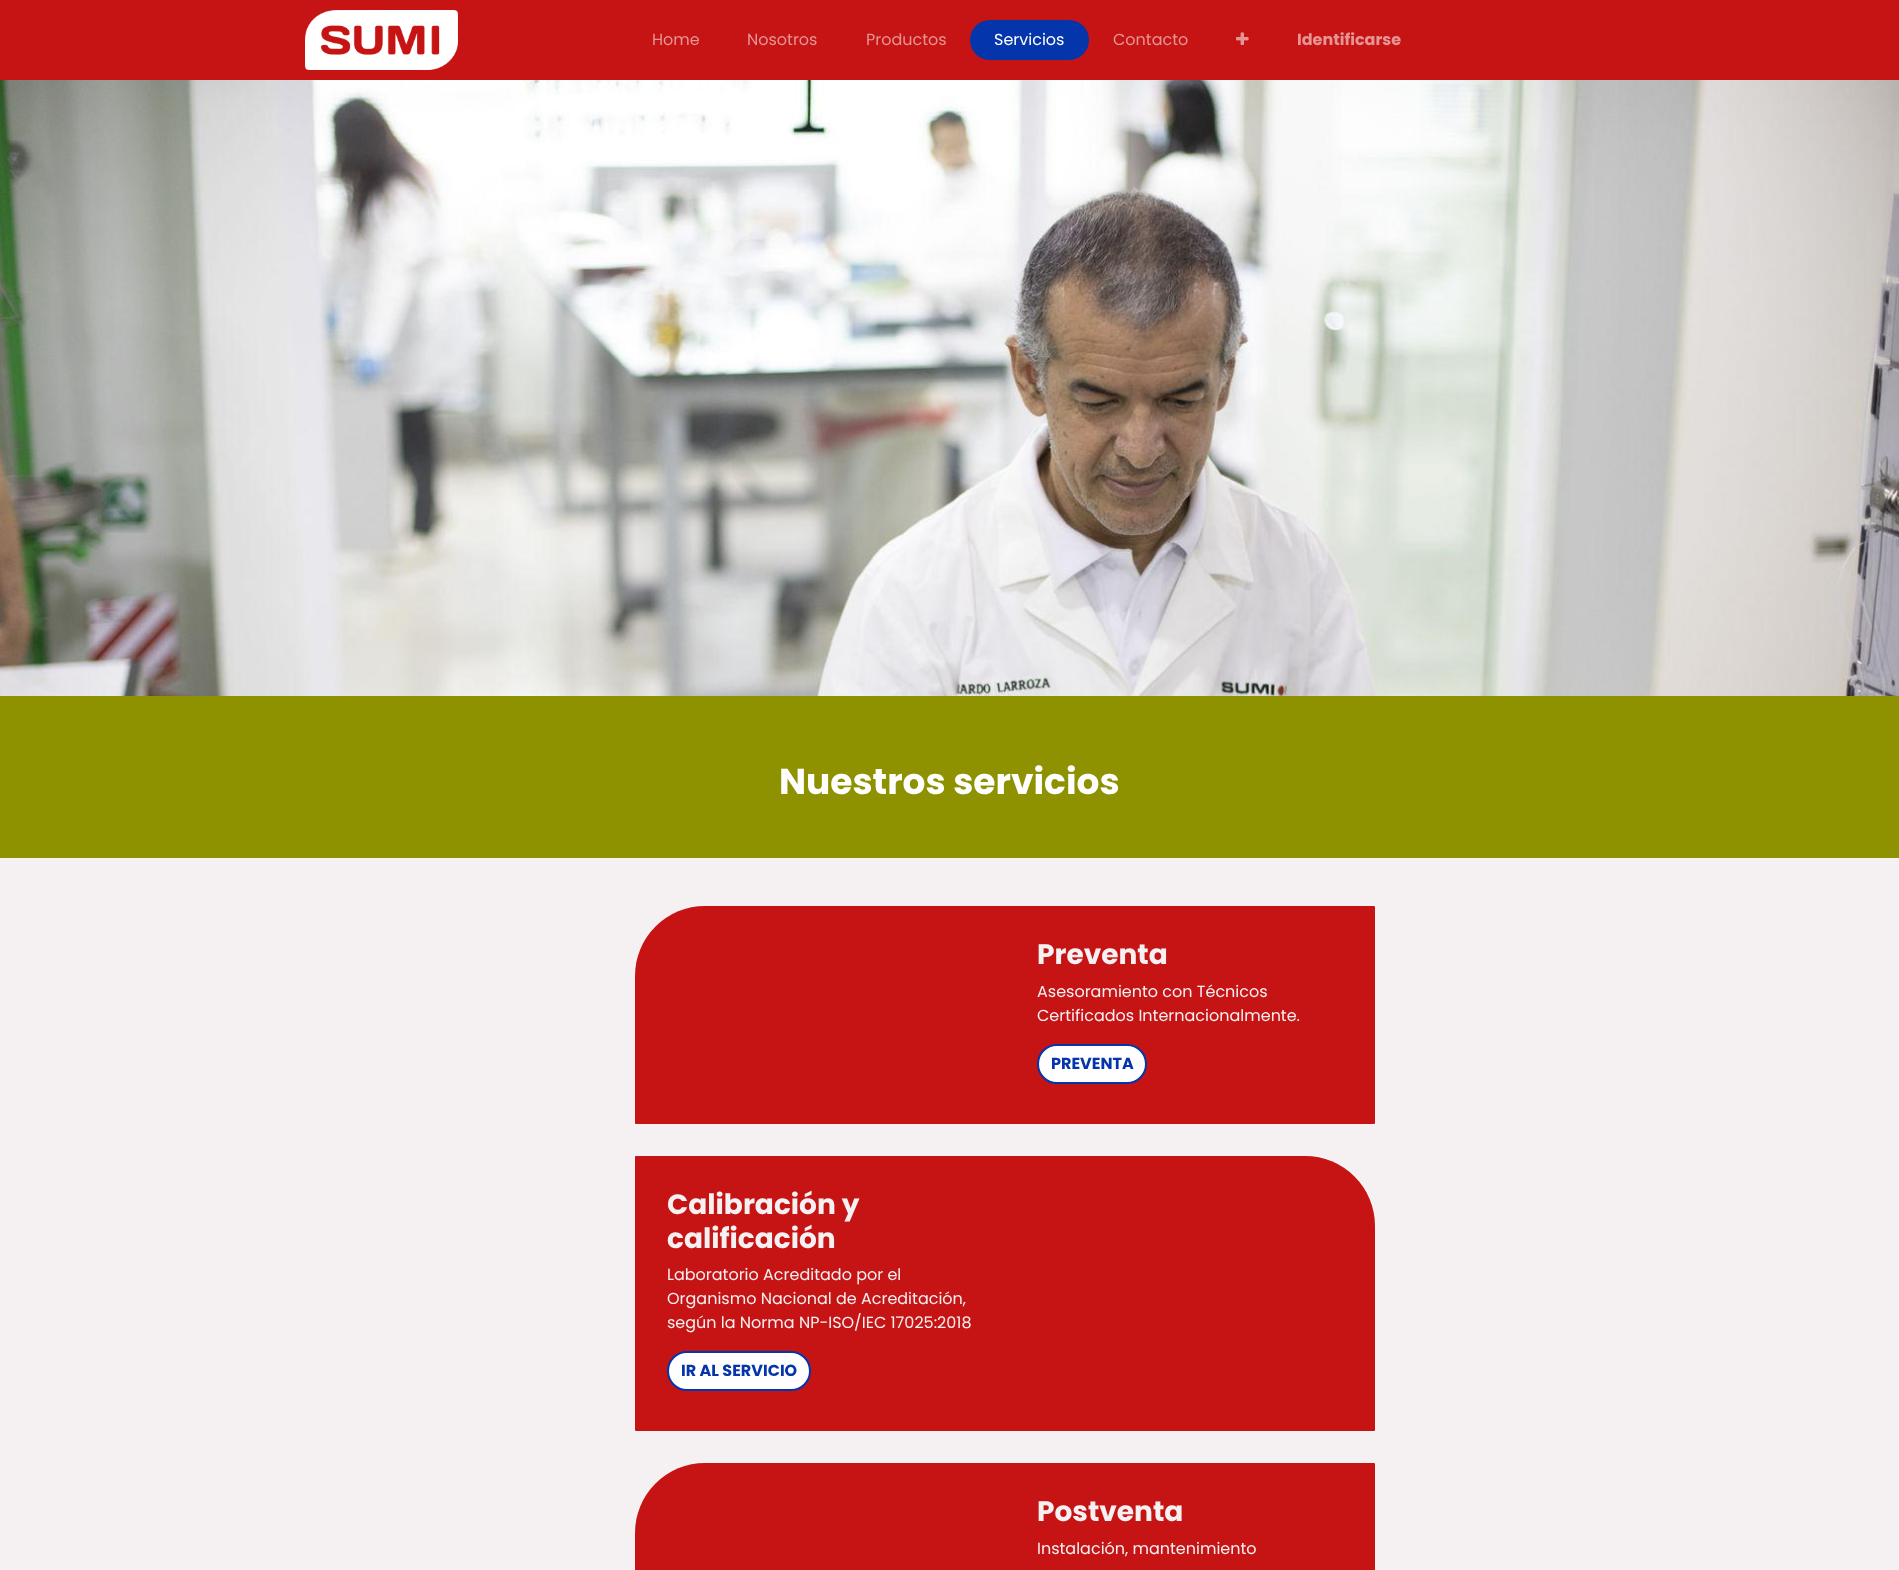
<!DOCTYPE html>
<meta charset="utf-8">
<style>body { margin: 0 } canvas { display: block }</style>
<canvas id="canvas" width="1899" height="1570"></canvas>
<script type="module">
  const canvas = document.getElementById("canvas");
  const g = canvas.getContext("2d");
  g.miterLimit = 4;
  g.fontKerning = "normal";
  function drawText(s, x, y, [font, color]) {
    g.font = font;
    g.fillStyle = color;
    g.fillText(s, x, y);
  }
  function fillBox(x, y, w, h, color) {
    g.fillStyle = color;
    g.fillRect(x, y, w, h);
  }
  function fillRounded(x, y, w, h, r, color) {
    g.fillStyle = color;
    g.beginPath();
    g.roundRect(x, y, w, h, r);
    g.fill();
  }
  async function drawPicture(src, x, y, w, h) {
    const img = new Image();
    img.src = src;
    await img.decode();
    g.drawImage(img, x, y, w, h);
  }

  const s1 = ["16px Poppins", "#E59595"];
  const s2 = ["16px Poppins", "#FFFFFF"];
  const s3 = ["bold 16px Poppins", "#E59595"];
  const s4 = ["bold 36px Poppins", "#FFFFFF"];
  const s5 = ["bold 28px Poppins", "#F5F0F2"];
  const s6 = ["16px Poppins", "#F5F0F2"];
  const s7 = ["bold 16px Poppins", "#0535AA"];

  fillBox(0, 0, 1899, 1570, "#FFFFFF");
  fillBox(0, 0, 1899, 80, "#C61414");
  await drawPicture("pic1.png", 305, 10, 153, 60);
  drawText("Home", 652, 45, s1);
  drawText("Nosotros", 747, 45, s1);
  drawText("Productos", 866, 45, s1);
  fillRounded(970, 20, 119, 40, 20, "#0535AA");
  drawText("Servicios", 994, 45, s2);
  drawText("Contacto", 1113, 45, s1);
  await drawPicture("pic2.png", 1236, 32, 13, 13);
  drawText("Identificarse", 1297, 45, s3);
  await drawPicture("pic3.png", 0, 80, 1899, 616);
  fillBox(0, 696, 1899, 162, "#8F9200");
  drawText("Nuestros servicios", 779, 794, s4);
  fillBox(0, 858, 1899, 712, "#F5F0F2");
  g.fillStyle = "#C61414";
  g.beginPath();
  g.roundRect(635, 906, 740, 218, [70, 1, 1, 1]);
  g.fill();
  drawText("Preventa", 1037, 964, s5);
  drawText("Asesoramiento con Técnicos", 1037, 997, s6);
  drawText("Certificados Internacionalmente.", 1037, 1021, s6);
  g.fillStyle = "#FFFFFF";
  g.beginPath();
  g.roundRect(1038, 1045, 108, 38, 19);
  g.fill();
  g.strokeStyle = "#0535AA";
  g.lineWidth = 2;
  g.stroke();
  drawText("PREVENTA", 1051, 1069, s7);
  g.fillStyle = "#C61414";
  g.beginPath();
  g.roundRect(635, 1156, 740, 275, [1, 70, 1, 1]);
  g.fill();
  drawText("Calibración y", 667, 1214, s5);
  drawText("calificación", 667, 1248, s5);
  drawText("Laboratorio Acreditado por el", 667, 1280, s6);
  drawText("Organismo Nacional de Acreditación,", 667, 1304, s6);
  drawText("según la Norma NP-ISO/IEC 17025:2018", 667, 1328, s6);
  g.fillStyle = "#FFFFFF";
  g.beginPath();
  g.roundRect(668, 1352, 142, 38, 19);
  g.fill();
  g.stroke();
  drawText("IR AL SERVICIO", 681, 1376, s7);
  g.fillStyle = "#C61414";
  g.beginPath();
  g.roundRect(635, 1463, 740, 107, [70, 1, 0, 0]);
  g.fill();
  drawText("Postventa", 1037, 1521, s5);
  drawText("Instalación, mantenimiento", 1037, 1554, s6);
</script>
